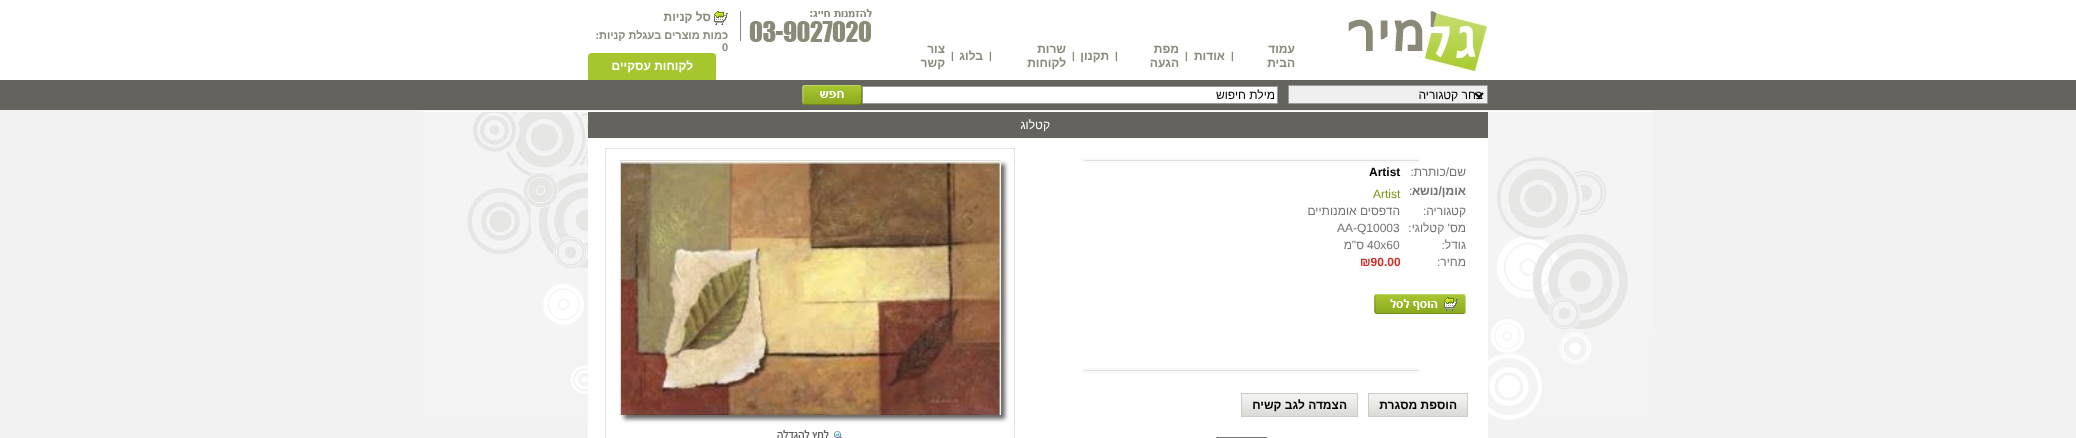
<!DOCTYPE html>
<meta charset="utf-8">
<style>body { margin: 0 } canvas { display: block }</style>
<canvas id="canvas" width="2076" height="438"></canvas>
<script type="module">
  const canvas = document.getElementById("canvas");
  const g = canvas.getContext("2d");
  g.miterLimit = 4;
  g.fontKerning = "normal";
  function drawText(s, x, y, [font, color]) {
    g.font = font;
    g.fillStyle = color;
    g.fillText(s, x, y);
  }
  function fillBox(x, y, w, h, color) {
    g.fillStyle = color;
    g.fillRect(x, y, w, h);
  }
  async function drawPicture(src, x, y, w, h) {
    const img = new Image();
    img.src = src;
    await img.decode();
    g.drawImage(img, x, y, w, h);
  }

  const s1 = ["bold 12px Liberation Sans", "#898A7A"];
  const s2 = ["bold 10px Liberation Sans", "#898A7A"];
  const s3 = ["bold 11px Liberation Sans", "#898A7A"];
  const s4 = ["bold 12px Liberation Sans", "#FFFFFF"];
  const s5 = ["12px Liberation Sans", "#000000"];
  const s6 = ["12px Liberation Sans", "#FFFFFF"];
  const s7 = ["12px Liberation Sans", "#727270"];
  const s8 = ["bold 12px Liberation Sans", "#000000"];
  const s9 = ["bold 12px Liberation Sans", "#727270"];
  const s10 = ["12px Liberation Sans", "#779416"];
  const s11 = ["bold 12px Liberation Sans", "#CB2E27"];

  fillBox(0, 0, 2076, 438, "#F2F2F2");
  fillBox(0, 0, 2076, 80, "#FFFFFF");
  await drawPicture("pic1.png", 1348, 11, 140, 60);
  g.direction = "rtl";
  drawText("עמוד", 1295, 53, s1);
  drawText("הבית", 1295, 67, s1);
  g.direction = "ltr";
  drawText("|", 1231, 59, s2);
  g.direction = "rtl";
  drawText("אודות", 1225, 60, s1);
  g.direction = "ltr";
  drawText("|", 1185, 59, s2);
  g.direction = "rtl";
  drawText("מפת", 1179, 53, s1);
  drawText("הגעה", 1179, 67, s1);
  g.direction = "ltr";
  drawText("|", 1115, 59, s2);
  g.direction = "rtl";
  drawText("תקנון", 1109, 60, s1);
  g.direction = "ltr";
  drawText("|", 1072, 59, s2);
  g.direction = "rtl";
  drawText("שרות", 1066, 53, s1);
  drawText("לקוחות", 1066, 67, s1);
  g.direction = "ltr";
  drawText("|", 989, 59, s2);
  g.direction = "rtl";
  drawText("בלוג", 983, 60, s1);
  g.direction = "ltr";
  drawText("|", 951, 59, s2);
  g.direction = "rtl";
  drawText("צור", 945, 53, s1);
  drawText("קשר", 945, 67, s1);
  await drawPicture("pic2.png", 749, 8, 123, 34);
  await drawPicture("pic3.png", 740, 11, 1, 32);
  await drawPicture("pic4.png", 714, 11, 14, 14);
  drawText("סל קניות", 711, 21, s1);
  drawText("כמות מוצרים בעגלת קניות:", 728, 39, s3);
  g.direction = "ltr";
  drawText("0", 722, 51, s3);
  await drawPicture("pic5.png", 588, 53, 128, 27);
  g.direction = "rtl";
  drawText("לקוחות עסקיים", 693, 70, s4);
  fillBox(0, 80, 2076, 30, "#64635E");
  g.fillStyle = "#EFEFEF";
  g.beginPath();
  g.rect(1288.5, 85.5, 199, 18);
  g.fill();
  g.strokeStyle = "#9A9A9A";
  g.stroke();
  g.beginPath();
  g.moveTo(1475, 93);
  g.lineTo(1479, 97);
  g.lineTo(1483, 93);
  g.strokeStyle = "#000000";
  g.lineWidth = 2;
  g.stroke();
  drawText("בחר קטגוריה", 1483, 99, s5);
  g.fillStyle = "#FFFFFF";
  g.beginPath();
  g.rect(862.5, 86.5, 415, 17);
  g.fill();
  g.strokeStyle = "#9A9A9A";
  g.lineWidth = 1;
  g.stroke();
  drawText("מילת חיפוש", 1275, 99, s5);
  await drawPicture("pic6.png", 802, 85, 60, 20);
  await drawPicture("pic7.png", 423, 111, 1231, 309);
  fillBox(588, 138, 900, 300, "#FFFFFF");
  fillBox(588, 112, 900, 26, "#64635E");
  drawText("קטלוג", 1050, 129, s6);
  await drawPicture("pic8.png", 1081, 158, 338, 5);
  drawText("שם/כותרת:", 1466, 176, s7);
  g.direction = "ltr";
  drawText("Artist", 1369, 176, s8);
  g.direction = "rtl";
  drawText("אומן/נושא", 1466, 195, s9);
  g.direction = "ltr";
  drawText(":", 1409, 195, s7);
  drawText("Artist", 1373, 198, s10);
  g.direction = "rtl";
  drawText("קטגוריה:", 1466, 215, s7);
  drawText("הדפסים אומנותיים", 1400, 215, s7);
  drawText("מס' קטלוגי:", 1466, 232, s7);
  g.direction = "ltr";
  drawText("AA-Q10003", 1337, 232, s7);
  g.direction = "rtl";
  drawText("גודל:", 1466, 249, s7);
  g.direction = "ltr";
  drawText("40x60", 1367, 249, s7);
  g.direction = "rtl";
  drawText("ס\"מ", 1364, 249, s7);
  drawText("מחיר:", 1466, 266, s7);
  g.direction = "ltr";
  drawText("₪90.00", 1360, 266, s11);
  await drawPicture("pic9.png", 1374, 294, 92, 20);
  await drawPicture("pic8.png", 1081, 368, 338, 5);
  await drawPicture("pic10.png", 1369, 394, 98, 22);
  g.strokeStyle = "#CCCCCC";
  g.strokeRect(1368.5, 393.5, 99, 23);
  g.direction = "rtl";
  drawText("הוספת מסגרת", 1457, 409, s8);
  await drawPicture("pic11.png", 1242, 394, 115, 22);
  g.strokeRect(1241.5, 393.5, 116, 23);
  drawText("הצמדה לגב קשיח", 1347, 409, s8);
  await drawPicture("pic12.png", 1216, 437, 52, 1);
  g.strokeStyle = "#E4E4E4";
  g.strokeRect(605.5, 148.5, 409, 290);
  g.fillStyle = "#666666";
  g.filter = "blur(2px)";
  g.beginPath();
  g.rect(624, 164, 381, 255);
  g.fill();
  g.filter = "none";
  fillBox(620, 160, 381, 1, "#DEDEDE");
  await drawPicture("pic13.png", 621, 161, 380, 254);
  fillBox(620, 160, 1, 255, "#DEDEDE");
  await drawPicture("pic14.png", 777, 427, 66, 11);
</script>
